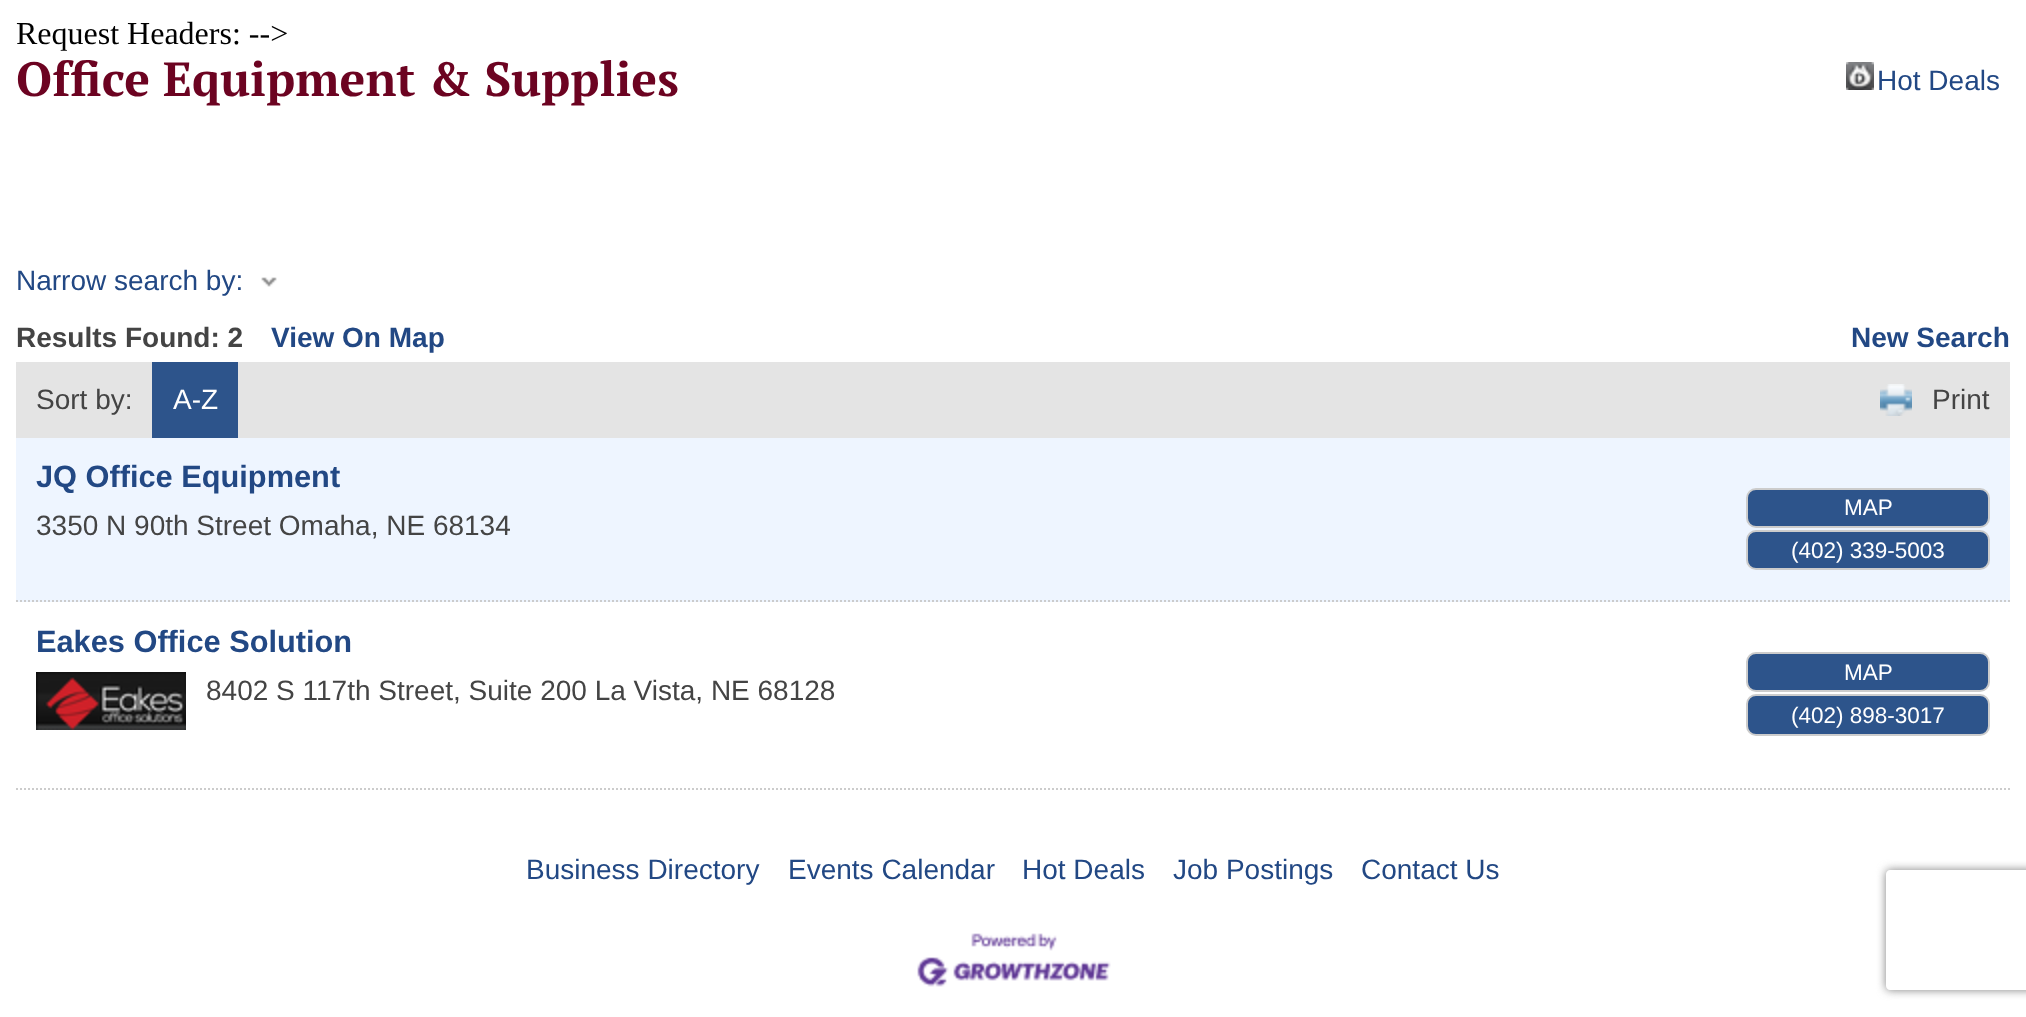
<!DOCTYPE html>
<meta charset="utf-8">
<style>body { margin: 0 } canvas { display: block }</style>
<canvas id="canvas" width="2026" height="1017"></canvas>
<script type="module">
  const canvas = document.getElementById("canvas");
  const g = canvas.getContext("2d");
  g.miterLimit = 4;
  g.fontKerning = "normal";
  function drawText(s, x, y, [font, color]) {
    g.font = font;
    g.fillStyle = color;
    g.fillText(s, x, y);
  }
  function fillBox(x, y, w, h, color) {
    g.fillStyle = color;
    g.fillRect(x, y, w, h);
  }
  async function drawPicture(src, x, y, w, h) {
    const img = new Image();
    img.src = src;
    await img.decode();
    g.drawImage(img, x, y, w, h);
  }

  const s1 = ["32px Liberation Serif", "#000000"];
  const s2 = ["bold 48px PT Serif", "#6C0321"];
  const s3 = ["28px Liberation Sans", "#224884"];
  const s4 = ["bold 28px Liberation Sans", "#444444"];
  const s5 = ["bold 28px Liberation Sans", "#224884"];
  const s6 = ["28px Liberation Sans", "#444444"];
  const s7 = ["28px Liberation Sans", "#FFFFFF"];
  const s8 = ["bold 30.75px Liberation Sans", "#224884"];
  const s9 = ["22.5px Liberation Sans", "#FFFFFF"];

  fillBox(0, 0, 2026, 1017, "#FFFFFF");
  drawText("Request Headers: -->", 16, 44, s1);
  drawText("Office Equipment & Supplies", 16, 96, s2);
  await drawPicture("pic1.png", 1846, 62, 28, 28);
  drawText("Hot Deals", 1877, 90, s3);
  drawText("Narrow search by:", 16, 290, s3);
  await drawPicture("pic2.png", 261, 277, 16, 10);
  drawText("Results Found: 2", 16, 347, s4);
  drawText("View On Map", 271, 347, s5);
  drawText("New Search", 1851, 347, s5);
  fillBox(16, 362, 1994, 76, "#E4E4E4");
  drawText("Sort by:", 36, 409, s6);
  fillBox(152, 362, 86, 76, "#2D548B");
  drawText("A-Z", 173, 409, s7);
  await drawPicture("pic3.png", 1880, 384, 32, 32);
  drawText("Print", 1932, 409, s6);
  fillBox(16, 438, 1994, 164, "#EEF5FF");
  g.beginPath();
  g.moveTo(16, 601);
  g.lineTo(2010, 601);
  g.strokeStyle = "#CCCCCC";
  g.lineWidth = 2;
  g.setLineDash([2, 2]);
  g.stroke();
  drawText("JQ Office Equipment", 36, 487, s8);
  drawText("3350 N 90th Street Omaha, NE 68134", 36, 535, s6);
  g.fillStyle = "#2D548B";
  g.beginPath();
  g.roundRect(1747, 489, 242, 38, 9);
  g.fill();
  g.setLineDash([]);
  g.stroke();
  drawText("MAP", 1844, 515, s9);
  g.fillStyle = "#2D548B";
  g.beginPath();
  g.roundRect(1747, 531, 242, 38, 9);
  g.fill();
  g.stroke();
  drawText("(402) 339-5003", 1791, 558, s9);
  g.beginPath();
  g.moveTo(16, 789);
  g.lineTo(2010, 789);
  g.setLineDash([2, 2]);
  g.stroke();
  drawText("Eakes Office Solution", 36, 652, s8);
  await drawPicture("pic4.png", 36, 672, 150, 58);
  drawText("8402 S 117th Street, Suite 200 La Vista, NE 68128", 206, 700, s6);
  g.fillStyle = "#2D548B";
  g.beginPath();
  g.roundRect(1747, 653, 242, 38, 9);
  g.fill();
  g.setLineDash([]);
  g.stroke();
  drawText("MAP", 1844, 680, s9);
  g.fillStyle = "#2D548B";
  g.beginPath();
  g.roundRect(1747, 695, 242, 40, 9);
  g.fill();
  g.stroke();
  drawText("(402) 898-3017", 1791, 723, s9);
  drawText("Business Directory", 526, 879, s3);
  drawText("Events Calendar", 788, 879, s3);
  drawText("Hot Deals", 1022, 879, s3);
  drawText("Job Postings", 1173, 879, s3);
  drawText("Contact Us", 1361, 879, s3);
  await drawPicture("pic5.png", 917, 933, 194, 54);
  g.save();
  g.beginPath();
  g.moveTo(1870, 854);
  g.lineTo(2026, 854);
  g.lineTo(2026, 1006);
  g.lineTo(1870, 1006);
  g.closePath();
  g.moveTo(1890, 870);
  g.lineTo(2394, 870);
  g.bezierCurveTo(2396, 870, 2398, 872, 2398, 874);
  g.lineTo(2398, 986);
  g.bezierCurveTo(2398, 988, 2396, 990, 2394, 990);
  g.lineTo(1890, 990);
  g.bezierCurveTo(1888, 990, 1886, 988, 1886, 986);
  g.lineTo(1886, 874);
  g.bezierCurveTo(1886, 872, 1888, 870, 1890, 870);
  g.closePath();
  g.clip("evenodd");
  g.fillStyle = "#808080";
  g.filter = "blur(5px)";
  g.beginPath();
  g.roundRect(1886, 870, 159, 120, 4);
  g.fill();
  g.filter = "none";
  g.restore();
</script>
